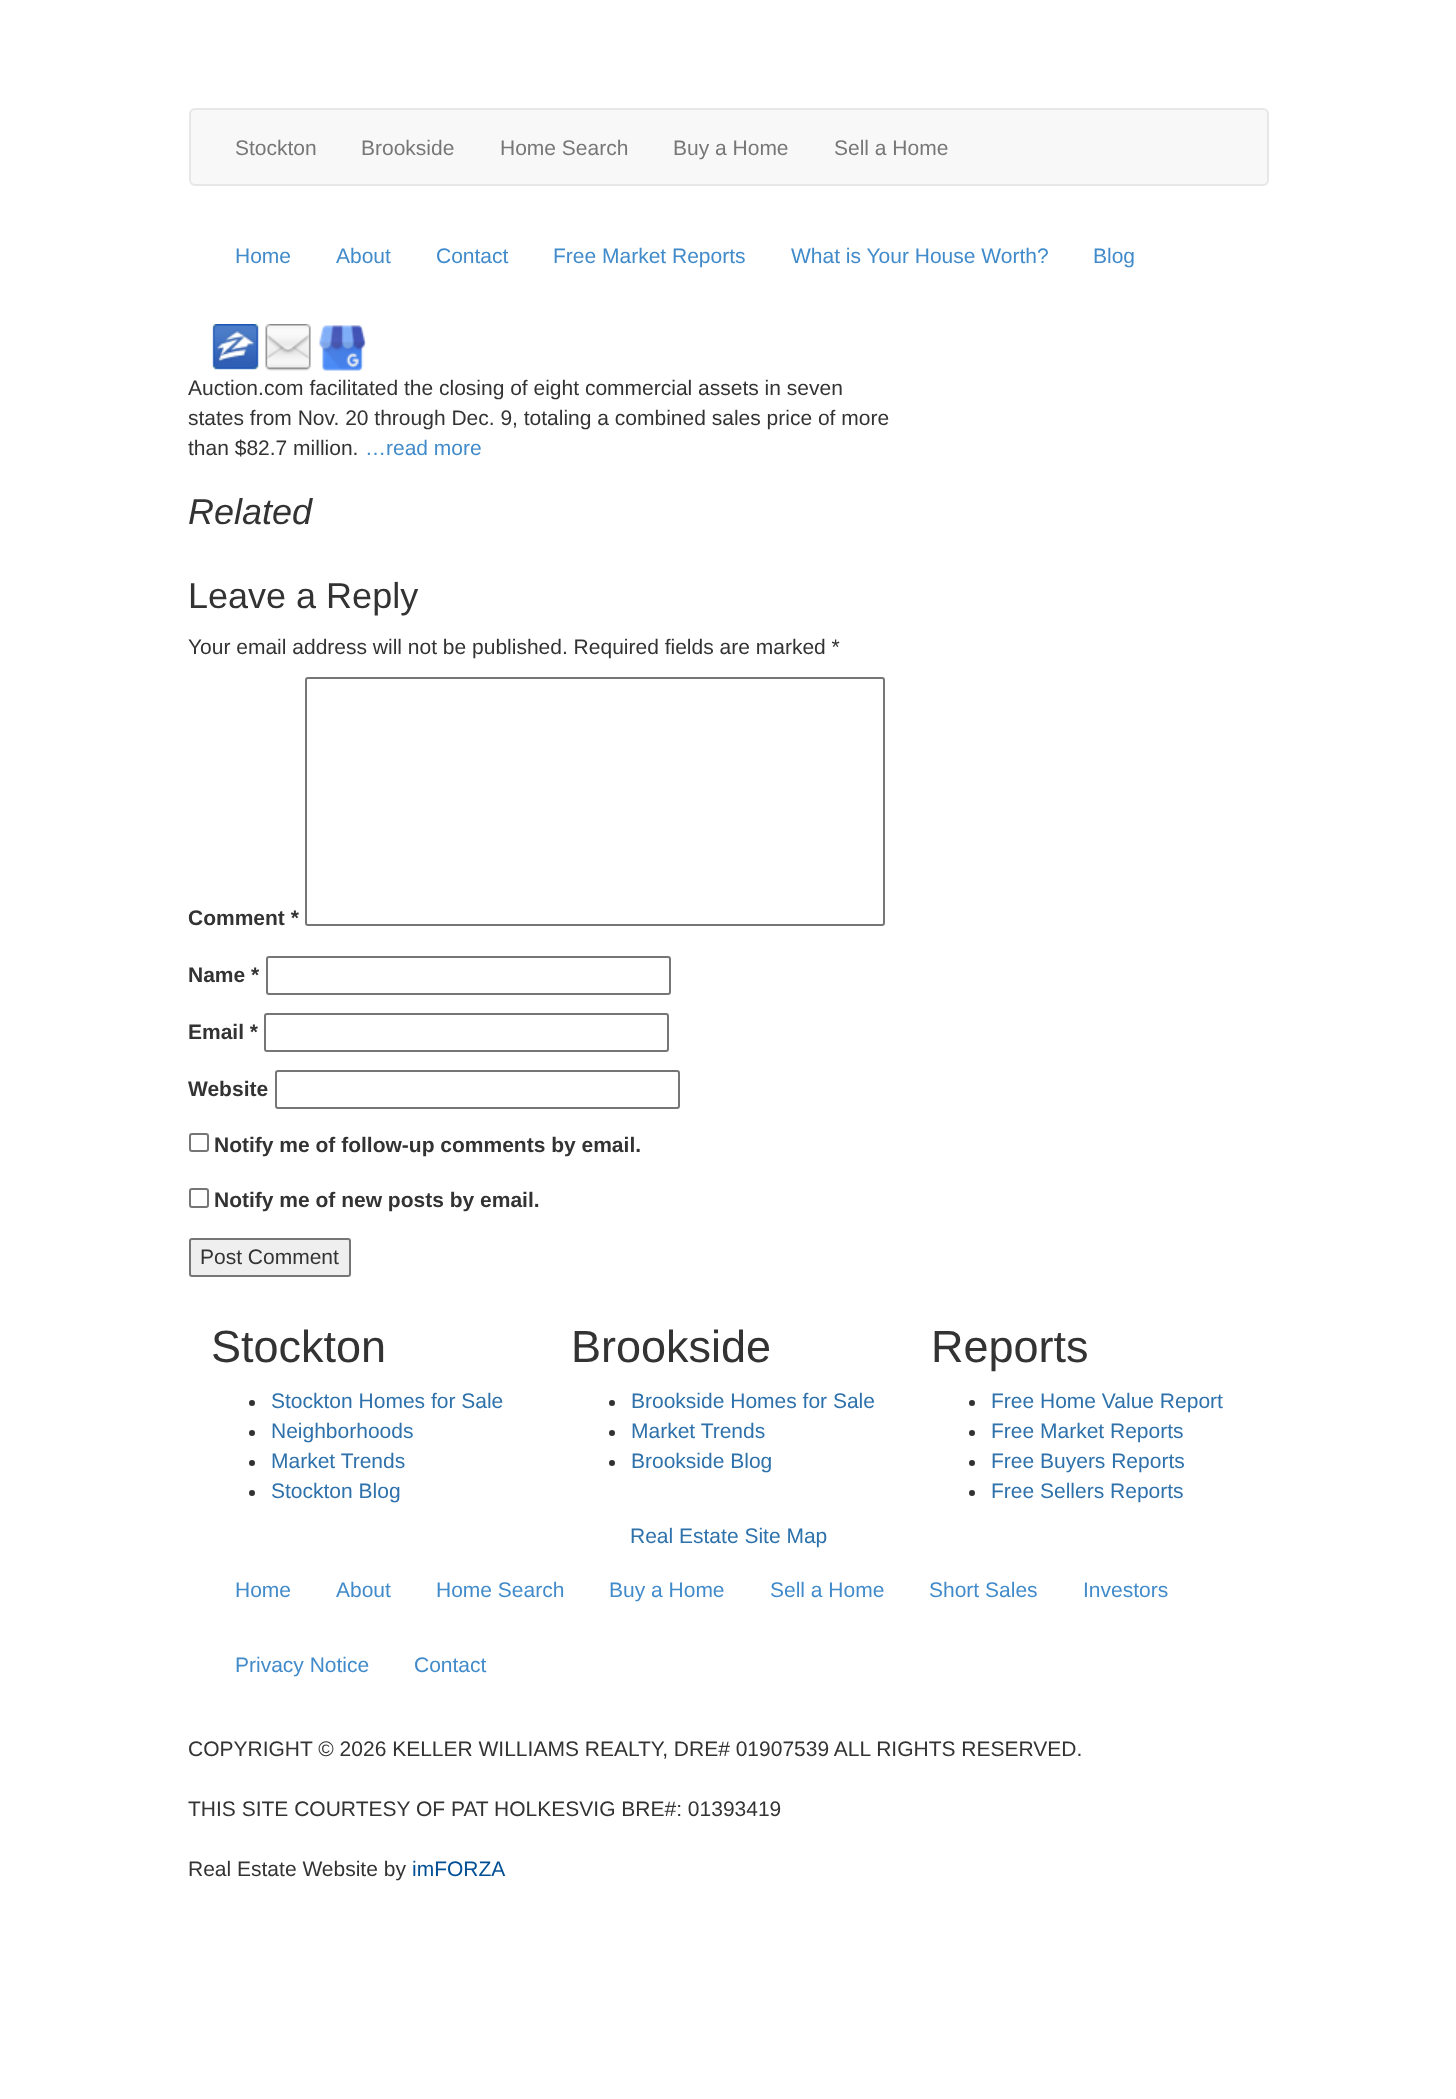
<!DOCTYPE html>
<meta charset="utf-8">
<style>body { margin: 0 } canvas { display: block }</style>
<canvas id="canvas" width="1456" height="2099"></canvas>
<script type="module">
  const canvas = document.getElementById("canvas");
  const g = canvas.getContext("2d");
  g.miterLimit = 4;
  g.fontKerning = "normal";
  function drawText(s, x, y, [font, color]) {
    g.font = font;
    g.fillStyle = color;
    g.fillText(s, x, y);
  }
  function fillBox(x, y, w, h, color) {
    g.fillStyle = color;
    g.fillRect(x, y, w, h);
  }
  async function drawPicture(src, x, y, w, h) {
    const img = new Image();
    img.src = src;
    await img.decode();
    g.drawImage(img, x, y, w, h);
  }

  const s1 = ["21px Liberation Sans", "#777777"];
  const s2 = ["21px Liberation Sans", "#428BCA"];
  const s3 = ["21px Liberation Sans", "#333333"];
  const s4 = ["italic 36px Liberation Sans", "#333333"];
  const s5 = ["36px Liberation Sans", "#333333"];
  const s6 = ["bold 21px Liberation Sans", "#333333"];
  const s7 = ["45px Liberation Sans", "#333333"];
  const s8 = ["21px Liberation Sans", "#2E71AB"];
  const s9 = ["21px Liberation Sans", "#004F95"];

  fillBox(0, 0, 1456, 2099, "#FFFFFF");
  g.fillStyle = "#F8F8F8";
  g.beginPath();
  g.roundRect(190, 109, 1078, 76, 5);
  g.fill();
  g.strokeStyle = "#E7E7E7";
  g.lineWidth = 2;
  g.stroke();
  drawText("Stockton", 235, 155, s1);
  drawText("Brookside", 361, 155, s1);
  drawText("Home Search", 500, 155, s1);
  drawText("Buy a Home", 673, 155, s1);
  drawText("Sell a Home", 834, 155, s1);
  drawText("Home", 235, 263, s2);
  drawText("About", 336, 263, s2);
  drawText("Contact", 436, 263, s2);
  drawText("Free Market Reports", 553, 263, s2);
  drawText("What is Your House Worth?", 791, 263, s2);
  drawText("Blog", 1093, 263, s2);
  await drawPicture("pic1.png", 212, 324, 47, 46);
  await drawPicture("pic2.png", 265, 324, 46, 47);
  await drawPicture("pic3.png", 319, 325, 47, 46);
  drawText("Auction.com facilitated the closing of eight commercial assets in seven", 188, 395, s3);
  drawText("states from Nov. 20 through Dec. 9, totaling a combined sales price of more", 188, 425, s3);
  drawText("than $82.7 million.", 188, 455, s3);
  drawText("…read more", 365, 455, s2);
  drawText("Related", 188, 524, s4);
  drawText("Leave a Reply", 188, 608, s5);
  drawText("Your email address will not be published. Required fields are marked *", 188, 654, s3);
  drawText("Comment *", 188, 925, s6);
  g.beginPath();
  g.roundRect(306, 678, 578, 247, 2);
  g.strokeStyle = "#767676";
  g.stroke();
  drawText("Name *", 188, 982, s6);
  g.beginPath();
  g.roundRect(267, 957, 403, 37, 2);
  g.stroke();
  drawText("Email *", 188, 1039, s6);
  g.beginPath();
  g.roundRect(265, 1014, 403, 37, 2);
  g.stroke();
  drawText("Website", 188, 1096, s6);
  g.beginPath();
  g.roundRect(276, 1071, 403, 37, 2);
  g.stroke();
  g.beginPath();
  g.roundRect(190, 1134, 18, 17, 2);
  g.stroke();
  drawText("Notify me of follow-up comments by email.", 214, 1152, s6);
  g.beginPath();
  g.roundRect(190, 1189, 18, 18, 2);
  g.stroke();
  drawText("Notify me of new posts by email.", 214, 1207, s6);
  g.fillStyle = "#EFEFEF";
  g.beginPath();
  g.roundRect(190, 1239, 160, 37, 2);
  g.fill();
  g.stroke();
  drawText("Post Comment", 200, 1264, s3);
  drawText("Stockton", 211, 1362, s7);
  g.beginPath();
  g.arc(252, 1403, 3, 0, Math.PI * 2);
  g.fill();
  drawText("Stockton Homes for Sale", 271, 1408, s8);
  g.fillStyle = "#333333";
  g.beginPath();
  g.arc(252, 1433, 3, 0, Math.PI * 2);
  g.fill();
  drawText("Neighborhoods", 271, 1438, s8);
  g.fillStyle = "#333333";
  g.beginPath();
  g.arc(252, 1463, 3, 0, Math.PI * 2);
  g.fill();
  drawText("Market Trends", 271, 1468, s8);
  g.fillStyle = "#333333";
  g.beginPath();
  g.arc(252, 1493, 3, 0, Math.PI * 2);
  g.fill();
  drawText("Stockton Blog", 271, 1498, s8);
  drawText("Brookside", 571, 1362, s7);
  g.beginPath();
  g.arc(612, 1403, 3, 0, Math.PI * 2);
  g.fill();
  drawText("Brookside Homes for Sale", 631, 1408, s8);
  g.fillStyle = "#333333";
  g.beginPath();
  g.arc(612, 1433, 3, 0, Math.PI * 2);
  g.fill();
  drawText("Market Trends", 631, 1438, s8);
  g.fillStyle = "#333333";
  g.beginPath();
  g.arc(612, 1463, 3, 0, Math.PI * 2);
  g.fill();
  drawText("Brookside Blog", 631, 1468, s8);
  drawText("Real Estate Site Map", 630, 1543, s8);
  drawText("Reports", 931, 1362, s7);
  g.beginPath();
  g.arc(972, 1403, 3, 0, Math.PI * 2);
  g.fill();
  drawText("Free Home Value Report", 991, 1408, s8);
  g.fillStyle = "#333333";
  g.beginPath();
  g.arc(972, 1433, 3, 0, Math.PI * 2);
  g.fill();
  drawText("Free Market Reports", 991, 1438, s8);
  g.fillStyle = "#333333";
  g.beginPath();
  g.arc(972, 1463, 3, 0, Math.PI * 2);
  g.fill();
  drawText("Free Buyers Reports", 991, 1468, s8);
  g.fillStyle = "#333333";
  g.beginPath();
  g.arc(972, 1493, 3, 0, Math.PI * 2);
  g.fill();
  drawText("Free Sellers Reports", 991, 1498, s8);
  drawText("Home", 235, 1597, s2);
  drawText("About", 336, 1597, s2);
  drawText("Home Search", 436, 1597, s2);
  drawText("Buy a Home", 609, 1597, s2);
  drawText("Sell a Home", 770, 1597, s2);
  drawText("Short Sales", 929, 1597, s2);
  drawText("Investors", 1083, 1597, s2);
  drawText("Privacy Notice", 235, 1672, s2);
  drawText("Contact", 414, 1672, s2);
  drawText("COPYRIGHT © 2026 KELLER WILLIAMS REALTY, DRE# 01907539 ALL RIGHTS RESERVED.", 188, 1756, s3);
  drawText("THIS SITE COURTESY OF PAT HOLKESVIG BRE#: 01393419", 188, 1816, s3);
  drawText("Real Estate Website by", 188, 1876, s3);
  drawText("imFORZA", 412, 1876, s9);
</script>
